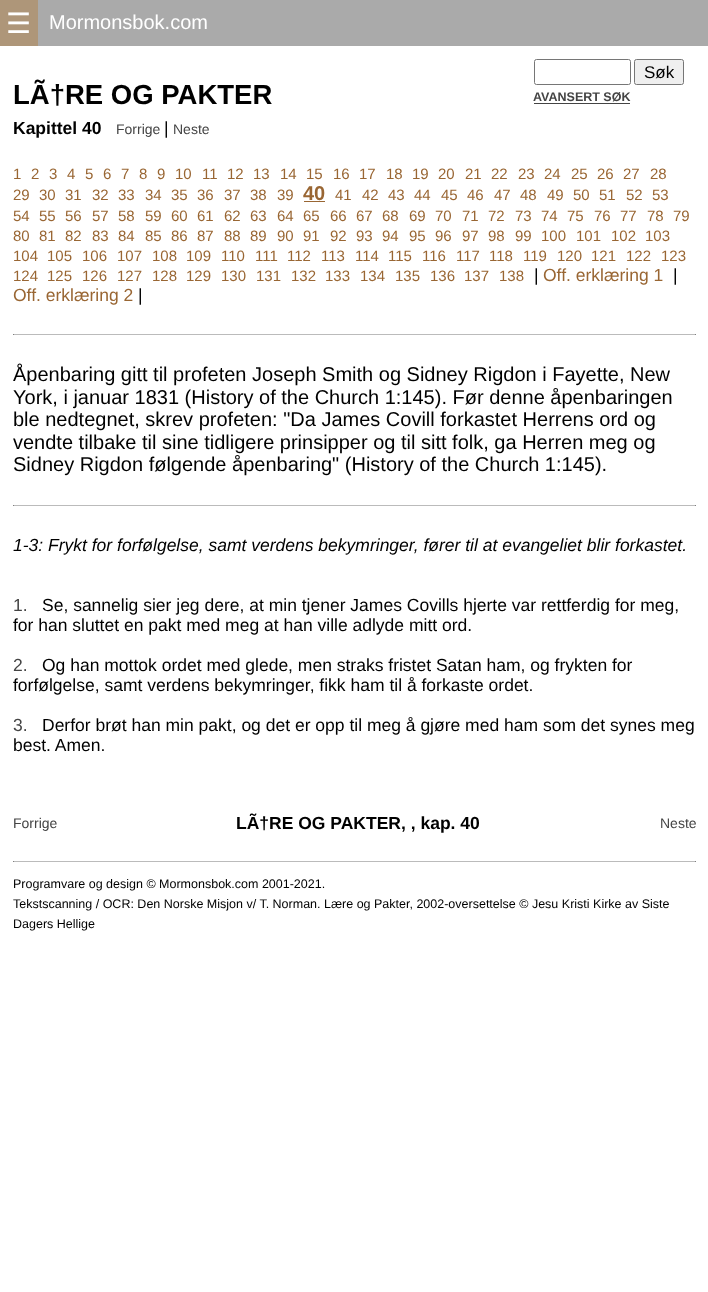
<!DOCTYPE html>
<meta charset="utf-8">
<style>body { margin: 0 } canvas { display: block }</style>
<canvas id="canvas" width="708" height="1292"></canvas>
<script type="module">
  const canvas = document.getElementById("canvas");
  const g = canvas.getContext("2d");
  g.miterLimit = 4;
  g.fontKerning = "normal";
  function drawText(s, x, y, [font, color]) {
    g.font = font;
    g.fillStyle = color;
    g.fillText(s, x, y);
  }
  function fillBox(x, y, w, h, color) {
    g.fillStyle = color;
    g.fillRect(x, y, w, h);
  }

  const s1 = ["28px DejaVu Sans", "#FFFFFF"];
  const s2 = ["20px Liberation Sans", "#FFFFFF"];
  const s3 = ["bold 27.5px Liberation Sans", "#000000"];
  const s4 = ["17px Liberation Sans", "#000000"];
  const s5 = ["bold 12.5px Liberation Sans", "#444444"];
  const s6 = ["bold 17.5px Liberation Sans", "#000000"];
  const s7 = ["14px Liberation Sans", "#444444"];
  const s8 = ["17.5px Liberation Sans", "#000000"];
  const s9 = ["15px Liberation Sans", "#996633"];
  const s10 = ["bold 20px Liberation Sans", "#996633"];
  const s11 = ["17.5px Liberation Sans", "#996633"];
  const s12 = ["20px Liberation Sans", "#000000"];
  const s13 = ["italic 17.5px Liberation Sans", "#000000"];
  const s14 = ["17.5px Liberation Sans", "#444444"];
  const s15 = ["12.5px Liberation Sans", "#000000"];

  fillBox(0, 0, 708, 1292, "#FFFFFF");
  fillBox(38, 0, 670, 46, "#AAAAAA");
  fillBox(0, 0, 38, 46, "#AE9679");
  drawText("☰", 6, 33, s1);
  drawText("Mormonsbok.com", 49, 29, s2);
  drawText("LÃ†RE OG PAKTER", 13, 104, s3);
  g.beginPath();
  g.roundRect(534.5, 59.5, 96, 25, 2);
  g.strokeStyle = "#767676";
  g.stroke();
  g.fillStyle = "#EFEFEF";
  g.beginPath();
  g.roundRect(634.5, 59.5, 49, 25, 2);
  g.fill();
  g.stroke();
  drawText("Søk", 644, 78, s4);
  drawText("AVANSERT SØK", 533, 101, s5);
  fillBox(534, 103, 96, 1, "#444444");
  drawText("Kapittel 40", 13, 134, s6);
  drawText("Forrige", 116, 134, s7);
  drawText("|", 164, 134, s8);
  drawText("Neste", 173, 134, s7);
  drawText("1", 13, 179, s9);
  drawText("2", 31, 179, s9);
  drawText("3", 49, 179, s9);
  drawText("4", 67, 179, s9);
  drawText("5", 85, 179, s9);
  drawText("6", 103, 179, s9);
  drawText("7", 121, 179, s9);
  drawText("8", 139, 179, s9);
  drawText("9", 157, 179, s9);
  drawText("10", 175, 179, s9);
  drawText("11", 202, 179, s9);
  drawText("12", 227, 179, s9);
  drawText("13", 253, 179, s9);
  drawText("14", 280, 179, s9);
  drawText("15", 306, 179, s9);
  drawText("16", 333, 179, s9);
  drawText("17", 359, 179, s9);
  drawText("18", 386, 179, s9);
  drawText("19", 412, 179, s9);
  drawText("20", 438, 179, s9);
  drawText("21", 465, 179, s9);
  drawText("22", 491, 179, s9);
  drawText("23", 518, 179, s9);
  drawText("24", 544, 179, s9);
  drawText("25", 571, 179, s9);
  drawText("26", 597, 179, s9);
  drawText("27", 623, 179, s9);
  drawText("28", 650, 179, s9);
  drawText("29", 13, 200, s9);
  drawText("30", 39, 200, s9);
  drawText("31", 65, 200, s9);
  drawText("32", 92, 200, s9);
  drawText("33", 118, 200, s9);
  drawText("34", 145, 200, s9);
  drawText("35", 171, 200, s9);
  drawText("36", 197, 200, s9);
  drawText("37", 224, 200, s9);
  drawText("38", 250, 200, s9);
  drawText("39", 277, 200, s9);
  drawText("40", 303, 200, s10);
  fillBox(304, 201, 21, 1, "#996633");
  drawText("41", 335, 200, s9);
  drawText("42", 362, 200, s9);
  drawText("43", 388, 200, s9);
  drawText("44", 414, 200, s9);
  drawText("45", 441, 200, s9);
  drawText("46", 467, 200, s9);
  drawText("47", 494, 200, s9);
  drawText("48", 520, 200, s9);
  drawText("49", 547, 200, s9);
  drawText("50", 573, 200, s9);
  drawText("51", 599, 200, s9);
  drawText("52", 626, 200, s9);
  drawText("53", 652, 200, s9);
  drawText("54", 13, 221, s9);
  drawText("55", 39, 221, s9);
  drawText("56", 65, 221, s9);
  drawText("57", 92, 221, s9);
  drawText("58", 118, 221, s9);
  drawText("59", 145, 221, s9);
  drawText("60", 171, 221, s9);
  drawText("61", 197, 221, s9);
  drawText("62", 224, 221, s9);
  drawText("63", 250, 221, s9);
  drawText("64", 277, 221, s9);
  drawText("65", 303, 221, s9);
  drawText("66", 330, 221, s9);
  drawText("67", 356, 221, s9);
  drawText("68", 382, 221, s9);
  drawText("69", 409, 221, s9);
  drawText("70", 435, 221, s9);
  drawText("71", 462, 221, s9);
  drawText("72", 488, 221, s9);
  drawText("73", 515, 221, s9);
  drawText("74", 541, 221, s9);
  drawText("75", 567, 221, s9);
  drawText("76", 594, 221, s9);
  drawText("77", 620, 221, s9);
  drawText("78", 647, 221, s9);
  drawText("79", 673, 221, s9);
  drawText("80", 13, 241, s9);
  drawText("81", 39, 241, s9);
  drawText("82", 65, 241, s9);
  drawText("83", 92, 241, s9);
  drawText("84", 118, 241, s9);
  drawText("85", 145, 241, s9);
  drawText("86", 171, 241, s9);
  drawText("87", 197, 241, s9);
  drawText("88", 224, 241, s9);
  drawText("89", 250, 241, s9);
  drawText("90", 277, 241, s9);
  drawText("91", 303, 241, s9);
  drawText("92", 330, 241, s9);
  drawText("93", 356, 241, s9);
  drawText("94", 382, 241, s9);
  drawText("95", 409, 241, s9);
  drawText("96", 435, 241, s9);
  drawText("97", 462, 241, s9);
  drawText("98", 488, 241, s9);
  drawText("99", 515, 241, s9);
  drawText("100", 541, 241, s9);
  drawText("101", 576, 241, s9);
  drawText("102", 611, 241, s9);
  drawText("103", 645, 241, s9);
  drawText("104", 13, 261, s9);
  drawText("105", 47, 261, s9);
  drawText("106", 82, 261, s9);
  drawText("107", 117, 261, s9);
  drawText("108", 152, 261, s9);
  drawText("109", 186, 261, s9);
  drawText("110", 221, 261, s9);
  drawText("111", 255, 261, s9);
  drawText("112", 287, 261, s9);
  drawText("113", 321, 261, s9);
  drawText("114", 355, 261, s9);
  drawText("115", 388, 261, s9);
  drawText("116", 422, 261, s9);
  drawText("117", 456, 261, s9);
  drawText("118", 489, 261, s9);
  drawText("119", 523, 261, s9);
  drawText("120", 557, 261, s9);
  drawText("121", 591, 261, s9);
  drawText("122", 626, 261, s9);
  drawText("123", 661, 261, s9);
  drawText("124", 13, 281, s9);
  drawText("125", 47, 281, s9);
  drawText("126", 82, 281, s9);
  drawText("127", 117, 281, s9);
  drawText("128", 152, 281, s9);
  drawText("129", 186, 281, s9);
  drawText("130", 221, 281, s9);
  drawText("131", 256, 281, s9);
  drawText("132", 291, 281, s9);
  drawText("133", 325, 281, s9);
  drawText("134", 360, 281, s9);
  drawText("135", 395, 281, s9);
  drawText("136", 430, 281, s9);
  drawText("137", 464, 281, s9);
  drawText("138", 499, 281, s9);
  drawText("|", 534, 281, s8);
  drawText("Off. erklæring 1", 543, 281, s11);
  drawText("|", 673, 281, s8);
  drawText("Off. erklæring 2", 13, 301, s11);
  drawText("|", 138, 301, s8);
  fillBox(13, 334, 683, 1, "#BBBBBB");
  fillBox(695, 334, 1, 1, "#808080");
  fillBox(13, 334, 1, 1, "#808080");
  drawText("Åpenbaring gitt til profeten Joseph Smith og Sidney Rigdon i Fayette, New", 13, 381, s12);
  drawText("York, i januar 1831 (History of the Church 1:145). Før denne åpenbaringen", 13, 404, s12);
  drawText("ble nedtegnet, skrev profeten: \"Da James Covill forkastet Herrens ord og", 13, 426, s12);
  drawText("vendte tilbake til sine tidligere prinsipper og til sitt folk, ga Herren meg og", 13, 449, s12);
  drawText("Sidney Rigdon følgende åpenbaring\" (History of the Church 1:145).", 13, 471, s12);
  fillBox(13, 505, 683, 1, "#BBBBBB");
  fillBox(695, 505, 1, 1, "#808080");
  fillBox(13, 505, 1, 1, "#808080");
  drawText("1-3: Frykt for forfølgelse, samt verdens bekymringer, fører til at evangeliet blir forkastet.", 13, 551, s13);
  drawText("1.", 13, 611, s14);
  drawText("Se, sannelig sier jeg dere, at min tjener James Covills hjerte var rettferdig for meg,", 42, 611, s8);
  drawText("for han sluttet en pakt med meg at han ville adlyde mitt ord.", 13, 631, s8);
  drawText("2.", 13, 671, s14);
  drawText("Og han mottok ordet med glede, men straks fristet Satan ham, og frykten for", 42, 671, s8);
  drawText("forfølgelse, samt verdens bekymringer, fikk ham til å forkaste ordet.", 13, 691, s8);
  drawText("3.", 13, 731, s14);
  drawText("Derfor brøt han min pakt, og det er opp til meg å gjøre med ham som det synes meg", 42, 731, s8);
  drawText("best. Amen.", 13, 751, s8);
  drawText("Forrige", 13, 828, s7);
  drawText("LÃ†RE OG PAKTER, , kap. 40", 236, 829, s6);
  drawText("Neste", 660, 828, s7);
  fillBox(13, 861, 683, 1, "#BBBBBB");
  fillBox(695, 861, 1, 1, "#808080");
  fillBox(13, 861, 1, 1, "#808080");
  drawText("Programvare og design © Mormonsbok.com 2001-2021.", 13, 888, s15);
  drawText("Tekstscanning / OCR: Den Norske Misjon v/ T. Norman. Lære og Pakter, 2002-oversettelse © Jesu Kristi Kirke av Siste", 13, 908, s15);
  drawText("Dagers Hellige", 13, 928, s15);
</script>
